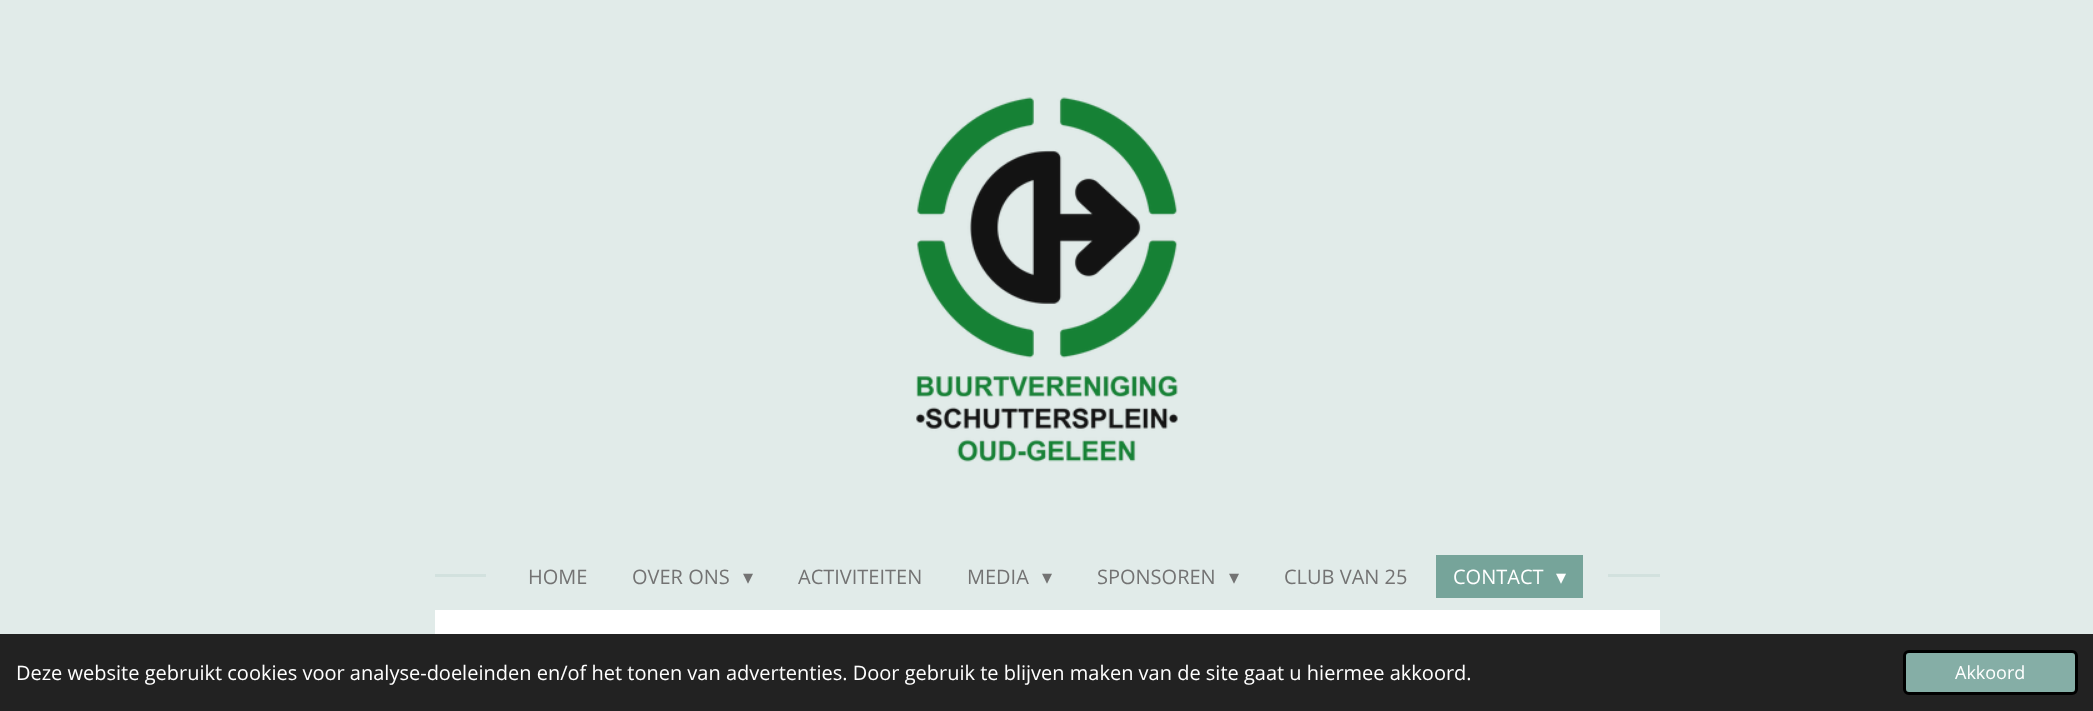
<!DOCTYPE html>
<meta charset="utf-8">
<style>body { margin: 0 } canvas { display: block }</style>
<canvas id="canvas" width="2093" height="711"></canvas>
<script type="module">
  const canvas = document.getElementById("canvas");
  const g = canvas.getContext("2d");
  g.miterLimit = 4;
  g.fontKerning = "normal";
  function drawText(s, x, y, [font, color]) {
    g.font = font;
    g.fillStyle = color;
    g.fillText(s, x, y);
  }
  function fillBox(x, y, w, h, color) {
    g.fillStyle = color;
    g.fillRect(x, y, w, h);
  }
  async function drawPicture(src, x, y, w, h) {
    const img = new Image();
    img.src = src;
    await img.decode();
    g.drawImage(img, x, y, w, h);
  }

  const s1 = ["20px Open Sans", "#737373"];
  const s2 = ["20px DejaVu Sans", "#737373"];
  const s3 = ["20px Open Sans", "#FFFFFF"];
  const s4 = ["20px DejaVu Sans", "#FFFFFF"];
  const s5 = ["18px Open Sans", "#FFFFFF"];

  fillBox(0, 0, 2093, 711, "#E1EBE9");
  await drawPicture("pic1.png", 916, 97, 262, 365);
  fillBox(435, 574, 51, 3, "#D2E1DE");
  drawText("HOME", 528, 584, s1);
  drawText("OVER ONS", 632, 584, s1);
  drawText("▾", 743, 584, s2);
  drawText("ACTIVITEITEN", 798, 584, s1);
  drawText("MEDIA", 967, 584, s1);
  drawText("▾", 1042, 584, s2);
  drawText("SPONSOREN", 1097, 584, s1);
  drawText("▾", 1229, 584, s2);
  drawText("CLUB VAN 25", 1284, 584, s1);
  fillBox(1436, 555, 147, 43, "#76A49A");
  drawText("CONTACT", 1453, 584, s3);
  drawText("▾", 1556, 584, s4);
  fillBox(1608, 574, 52, 3, "#D2E1DE");
  fillBox(435, 610, 1225, 24, "#FFFFFF");
  fillBox(0, 634, 2093, 77, "#222222");
  drawText("Deze website gebruikt cookies voor analyse-doeleinden en/of het tonen van advertenties. Door gebruik te blijven maken van de site gaat u hiermee akkoord.", 16, 680, s3);
  g.fillStyle = "#85AEA6";
  g.beginPath();
  g.roundRect(1904.5, 651.5, 172, 42, 4.5);
  g.fill();
  g.strokeStyle = "#000000";
  g.lineWidth = 3;
  g.stroke();
  drawText("Akkoord", 1955, 679, s5);
</script>
